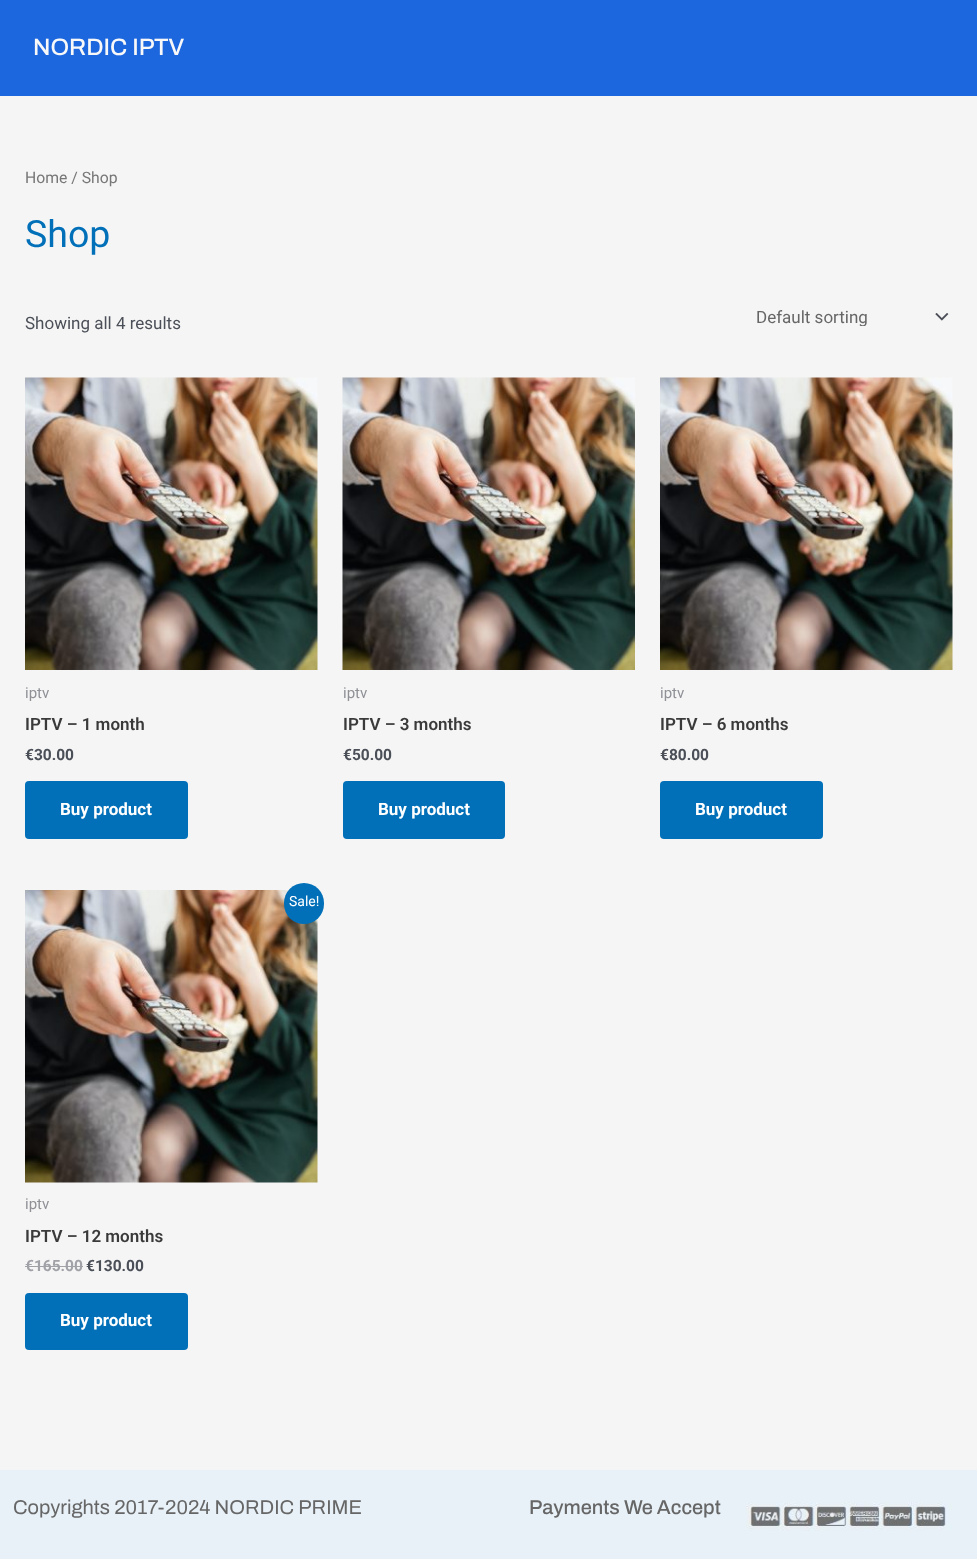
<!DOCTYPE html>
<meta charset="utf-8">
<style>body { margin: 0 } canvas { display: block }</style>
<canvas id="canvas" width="977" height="1559"></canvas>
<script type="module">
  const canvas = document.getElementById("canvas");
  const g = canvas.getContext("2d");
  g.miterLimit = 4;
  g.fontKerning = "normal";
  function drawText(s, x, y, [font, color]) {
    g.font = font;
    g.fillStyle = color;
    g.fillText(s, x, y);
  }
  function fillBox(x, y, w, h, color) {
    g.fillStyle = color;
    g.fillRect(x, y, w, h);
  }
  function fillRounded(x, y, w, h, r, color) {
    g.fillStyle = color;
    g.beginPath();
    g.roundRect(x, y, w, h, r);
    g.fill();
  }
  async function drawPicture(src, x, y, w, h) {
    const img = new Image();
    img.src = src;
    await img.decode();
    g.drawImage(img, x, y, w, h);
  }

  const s1 = ["500 23.75px Archivo", "#F8F8F8"];
  const s2 = ["15.75px Roboto", "#777777"];
  const s3 = ["37.5px Roboto", "#0170B9"];
  const s4 = ["17px Roboto", "#4B4F58"];
  const s5 = ["17px Roboto", "#666666"];
  const s6 = ["15px Roboto", "#8F9197"];
  const s7 = ["600 17px Roboto", "#3A3A3A"];
  const s8 = ["bold 15.5px Roboto", "#4B4F58"];
  const s9 = ["bold 17px Roboto", "#FFFFFF"];
  const s10 = ["14px Roboto", "#FFFFFF"];
  const s11 = ["bold 15.5px Roboto", "#A0A2A7"];
  const s12 = ["20px Archivo", "#666666"];
  const s13 = ["500 20px Archivo", "#666666"];

  fillBox(0, 0, 977, 1559, "#F5F5F5");
  fillBox(0, 0, 977, 96, "#1C66DE");
  drawText("NORDIC IPTV", 33, 55, s1);
  drawText("Home / Shop", 25, 183, s2);
  drawText("Shop", 25, 247, s3);
  drawText("Showing all 4 results", 25, 329, s4);
  await drawPicture("pic1.png", 935, 313, 14, 8);
  g.save();
  g.beginPath();
  g.rect(756, 306, 188, 20);
  g.clip();
  drawText("Default sorting", 756, 323, s5);
  g.restore();
  await drawPicture("pic2.png", 25, 377, 293, 293);
  drawText("iptv", 25, 698, s6);
  drawText("IPTV – 1 month", 25, 730, s7);
  drawText("€30.00", 25, 760, s8);
  fillRounded(25, 781, 163, 58, 4, "#0170B9");
  drawText("Buy product", 60, 815, s9);
  await drawPicture("pic3.png", 342, 377, 293, 293);
  drawText("iptv", 343, 698, s6);
  drawText("IPTV – 3 months", 343, 730, s7);
  drawText("€50.00", 343, 760, s8);
  fillRounded(343, 781, 162, 58, 4, "#0170B9");
  drawText("Buy product", 378, 815, s9);
  await drawPicture("pic2.png", 660, 377, 293, 293);
  drawText("iptv", 660, 698, s6);
  drawText("IPTV – 6 months", 660, 730, s7);
  drawText("€80.00", 660, 760, s8);
  fillRounded(660, 781, 163, 58, 4, "#0170B9");
  drawText("Buy product", 695, 815, s9);
  await drawPicture("pic4.png", 25, 890, 293, 293);
  fillRounded(284, 883, 40, 41, 20, "#0170B9");
  drawText("Sale!", 289, 906, s10);
  drawText("iptv", 25, 1209, s6);
  drawText("IPTV – 12 months", 25, 1242, s7);
  drawText("€165.00", 25, 1271, s11);
  fillBox(25, 1266, 58, 1, "#A0A2A7");
  drawText("€130.00", 86, 1271, s8);
  fillRounded(25, 1293, 163, 57, 4, "#0170B9");
  drawText("Buy product", 60, 1326, s9);
  fillBox(0, 1470, 977, 89, "#E8F1F8");
  drawText("Copyrights 2017-2024 NORDIC PRIME", 13, 1514, s12);
  drawText("Payments We Accept", 529, 1514, s13);
  await drawPicture("pic5.png", 746, 1502, 206, 29);
</script>
